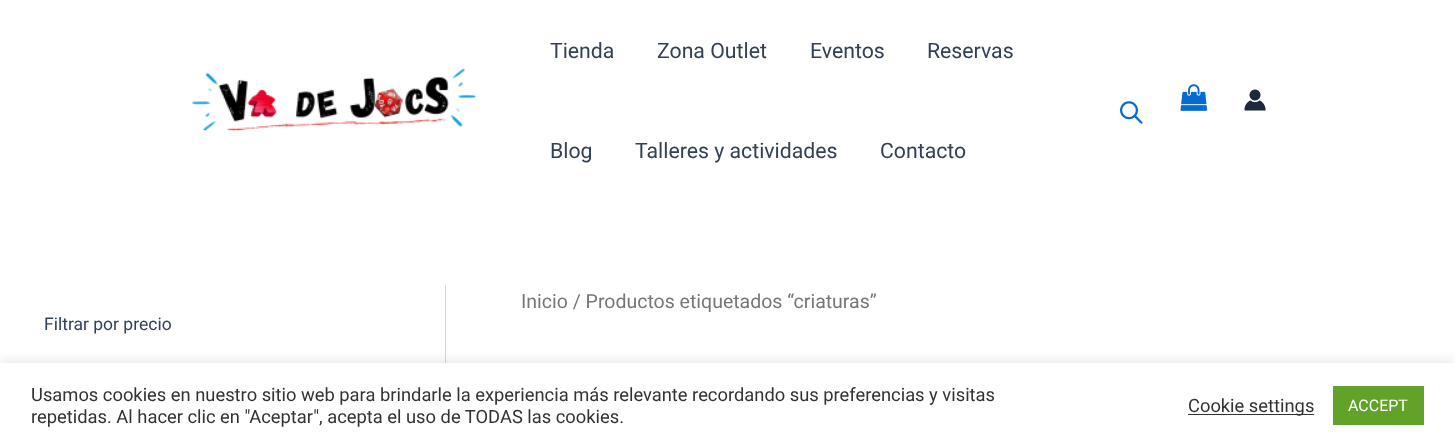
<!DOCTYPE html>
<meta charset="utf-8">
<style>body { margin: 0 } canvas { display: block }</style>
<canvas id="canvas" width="1455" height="448"></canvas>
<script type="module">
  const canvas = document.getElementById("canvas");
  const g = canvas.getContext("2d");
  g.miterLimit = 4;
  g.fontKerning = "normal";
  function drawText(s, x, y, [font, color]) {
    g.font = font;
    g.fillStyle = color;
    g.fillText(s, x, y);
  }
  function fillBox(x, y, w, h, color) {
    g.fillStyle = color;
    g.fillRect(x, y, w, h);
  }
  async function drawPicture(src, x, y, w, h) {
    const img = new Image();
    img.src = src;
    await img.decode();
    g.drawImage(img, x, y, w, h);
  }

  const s1 = ["21.25px Roboto", "#334155"];
  const s2 = ["19.5px Roboto", "#777777"];
  const s3 = ["17.5px Roboto", "#334155"];
  const s4 = ["18.33px Roboto", "#333333"];
  const s5 = ["16px Roboto", "#FFFFFF"];

  fillBox(0, 0, 1455, 448, "#FFFFFF");
  await drawPicture("pic1.png", 192, 68, 285, 64);
  drawText("Tienda", 550, 58, s1);
  drawText("Zona Outlet", 657, 58, s1);
  drawText("Eventos", 810, 58, s1);
  drawText("Reservas", 927, 58, s1);
  drawText("Blog", 550, 158, s1);
  drawText("Talleres y actividades", 635, 158, s1);
  drawText("Contacto", 880, 158, s1);
  await drawPicture("pic2.png", 1120, 101, 23, 23);
  await drawPicture("pic3.png", 1180, 84, 28, 27);
  await drawPicture("pic4.png", 1244, 89, 22, 22);
  drawText("Inicio / Productos etiquetados “criaturas”", 521, 308, s2);
  fillBox(445, 285, 1, 78, "#D1D5DB");
  drawText("Filtrar por precio", 44, 330, s3);
  g.fillStyle = "rgba(172, 171, 171, 0.3)";
  g.filter = "blur(6px)";
  g.beginPath();
  g.rect(0, 361, 1455, 87);
  g.fill();
  g.filter = "none";
  fillBox(0, 363, 1455, 85, "#FFFFFF");
  drawText("Usamos cookies en nuestro sitio web para brindarle la experiencia más relevante recordando sus preferencias y visitas", 31, 401, s4);
  drawText("repetidas. Al hacer clic en \"Aceptar\", acepta el uso de TODAS las cookies.", 31, 423, s4);
  fillBox(1188, 414, 126, 1, "#333333");
  drawText("Cookie settings", 1188, 412, s4);
  fillBox(1333, 386, 91, 39, "#61A229");
  drawText("ACCEPT", 1348, 411, s5);
</script>
